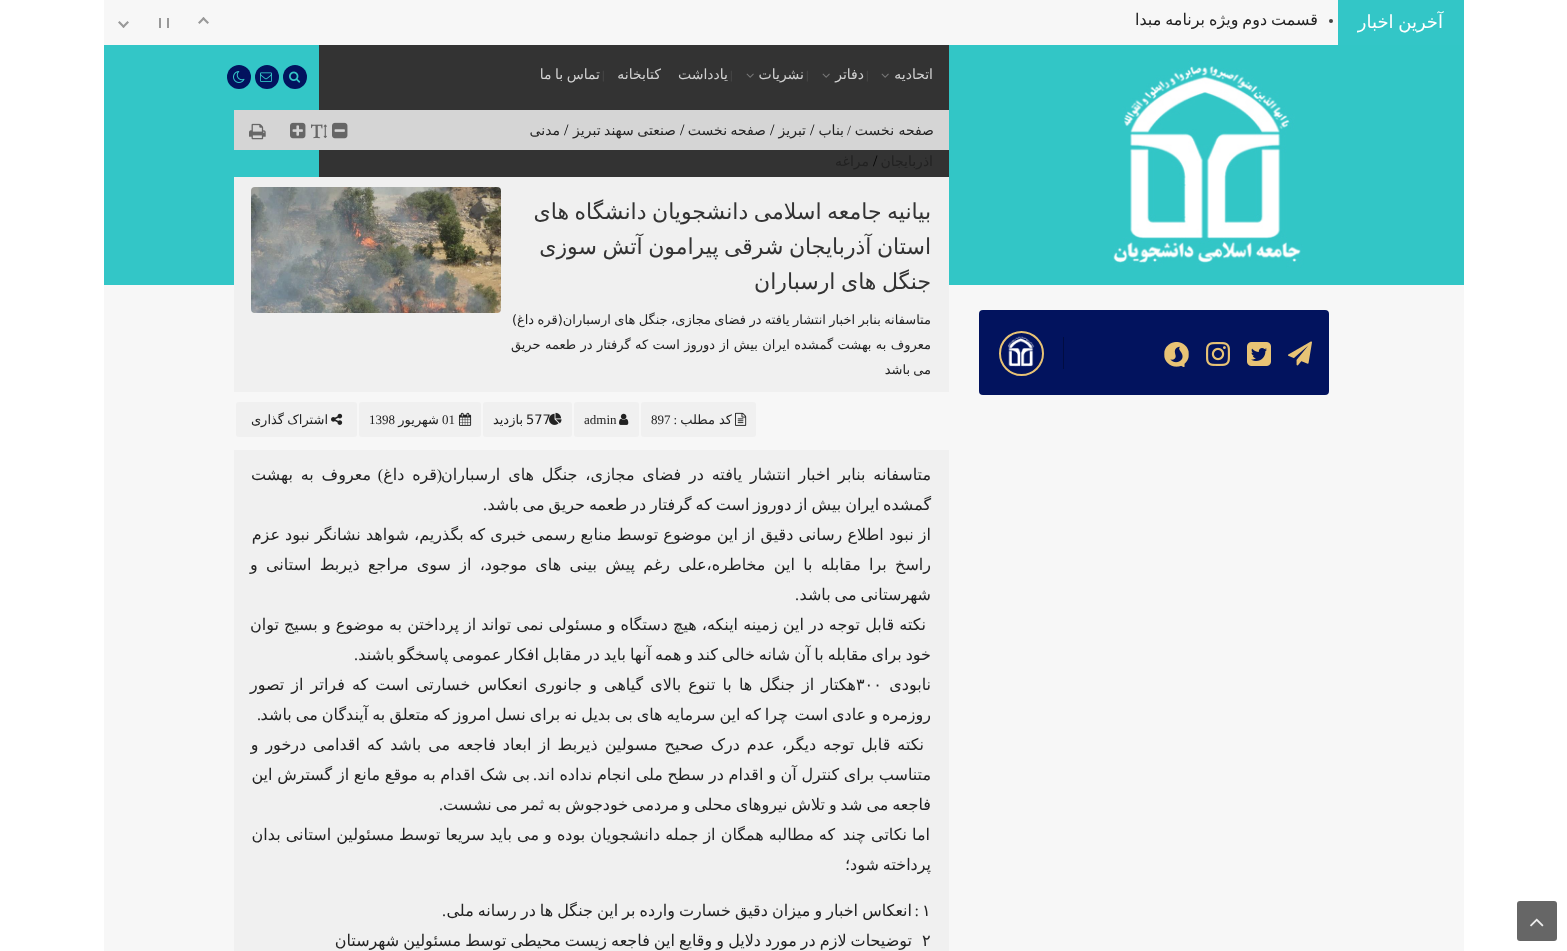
<!DOCTYPE html>
<meta charset="utf-8">
<style>body { margin: 0 } canvas { display: block }</style>
<canvas id="canvas" width="1567" height="951"></canvas>
<script type="module">
  const canvas = document.getElementById("canvas");
  const g = canvas.getContext("2d");
  g.miterLimit = 4;
  g.fontKerning = "normal";
  function drawText(s, x, y, [font, color]) {
    g.font = font;
    g.fillStyle = color;
    g.fillText(s, x, y);
  }
  function fillBox(x, y, w, h, color) {
    g.fillStyle = color;
    g.fillRect(x, y, w, h);
  }
  function fillRounded(x, y, w, h, r, color) {
    g.fillStyle = color;
    g.beginPath();
    g.roundRect(x, y, w, h, r);
    g.fill();
  }
  async function drawPicture(src, x, y, w, h) {
    const img = new Image();
    img.src = src;
    await img.decode();
    g.drawImage(img, x, y, w, h);
  }

  const s1 = ["18px DejaVu Sans", "#FFFFFF"];
  const s2 = ["16px DejaVu Sans", "#222222"];
  const s3 = ["14px DejaVu Sans", "#D2D2D2"];
  const s4 = ["12px Liberation Serif", "#545454"];
  const s5 = ["14px DejaVu Sans", "#222222"];
  const s6 = ["14px Liberation Serif", "#222222"];
  const s7 = ["16px Liberation Serif", "#000000"];
  const s8 = ["22px DejaVu Sans", "#333333"];
  const s9 = ["13px DejaVu Sans", "#222222"];
  const s10 = ["13px Liberation Serif", "#222222"];
  const s11 = ["16px Liberation Serif", "#222222"];

  fillBox(0, 0, 1567, 951, "#FFFFFF");
  fillBox(104, 0, 1234, 45, "#F7F7F7");
  fillBox(1338, 0, 126, 45, "#33C6C7");
  g.wordSpacing = "-1px";
  g.direction = "rtl";
  drawText("آخرین اخبار", 1443, 28, s1);
  g.fillStyle = "#444444";
  g.beginPath();
  g.arc(1331, 21, 2, 0, Math.PI * 2);
  g.fill();
  g.wordSpacing = "-1.1px";
  drawText("قسمت دوم ویژه برنامه مبدا", 1318, 25, s2);
  g.fillStyle = "#999999";
  g.beginPath();
  g.moveTo(199.5, 24);
  g.lineTo(198, 22.5);
  g.lineTo(203.5, 17);
  g.lineTo(205, 18.5);
  g.closePath();
  g.fill();
  g.beginPath();
  g.moveTo(207.5, 24);
  g.lineTo(202, 18.5);
  g.lineTo(203.5, 17);
  g.lineTo(209, 22.5);
  g.closePath();
  g.fill();
  fillBox(167, 18, 2, 10, "#999999");
  fillBox(159, 18, 2, 10, "#999999");
  g.beginPath();
  g.moveTo(127.5, 21);
  g.lineTo(129, 22.5);
  g.lineTo(123.5, 28);
  g.lineTo(122, 26.5);
  g.closePath();
  g.fill();
  g.beginPath();
  g.moveTo(119.5, 21);
  g.lineTo(125, 26.5);
  g.lineTo(123.5, 28);
  g.lineTo(118, 22.5);
  g.closePath();
  g.fill();
  await drawPicture("pic1.png", 949, 45, 515, 240);
  fillBox(319, 45, 630, 132, "#333333");
  g.wordSpacing = "0px";
  drawText("اتحادیه", 933, 79, s3);
  await drawPicture("pic2.png", 881, 73, 8, 5);
  g.direction = "ltr";
  drawText("|", 866, 79, s4);
  g.direction = "rtl";
  drawText("دفاتر", 864, 79, s3);
  await drawPicture("pic2.png", 822, 73, 8, 5);
  g.direction = "ltr";
  drawText("|", 806, 79, s4);
  g.direction = "rtl";
  drawText("نشریات", 804, 79, s3);
  await drawPicture("pic2.png", 746, 73, 8, 5);
  g.direction = "ltr";
  drawText("|", 730, 79, s4);
  g.direction = "rtl";
  drawText("یادداشت", 728, 79, s3);
  drawText("کتابخانه", 661, 79, s3);
  g.direction = "ltr";
  drawText("|", 602, 79, s4);
  g.wordSpacing = "-1px";
  g.direction = "rtl";
  drawText("تماس با ما", 600, 79, s3);
  fillBox(104, 45, 215, 240, "#33C6C7");
  g.fillStyle = "#02135E";
  g.beginPath();
  g.arc(295, 77, 12, 0, Math.PI * 2);
  g.fill();
  await drawPicture("pic3.png", 289, 71, 12, 12);
  g.beginPath();
  g.arc(267, 77, 12, 0, Math.PI * 2);
  g.fill();
  await drawPicture("pic4.png", 260, 72, 12, 10);
  g.beginPath();
  g.arc(239, 77, 12, 0, Math.PI * 2);
  g.fill();
  await drawPicture("pic5.png", 233, 71, 12, 12);
  fillRounded(1517, 901, 40, 40, 3, "#666666");
  await drawPicture("pic6.png", 1530, 918, 14, 9);
  fillBox(104, 285, 1360, 666, "#F7F7F7");
  fillRounded(979, 310, 350, 85, 4, "#02135E");
  await drawPicture("pic7.png", 1288, 341, 24, 25);
  await drawPicture("pic8.png", 1247, 342, 24, 24);
  await drawPicture("pic9.png", 1206, 342, 24, 24);
  await drawPicture("pic10.png", 1164, 342, 25, 25);
  fillBox(1063, 337, 1, 32, "#010D42");
  g.beginPath();
  g.arc(1021.5, 353.5, 21.5, 0, Math.PI * 2);
  g.strokeStyle = "#E8C375";
  g.lineWidth = 2;
  g.stroke();
  await drawPicture("pic11.png", 1008, 336, 27, 31);
  fillBox(234, 110, 715, 40, "#D5D5D5");
  g.wordSpacing = "0px";
  drawText("صفحه نخست", 934, 135, s5);
  drawText("/", 851, 135, s6);
  drawText("بناب", 844, 135, s5);
  g.direction = "ltr";
  drawText("/", 810, 135, s7);
  g.direction = "rtl";
  drawText("تبریز", 806, 135, s5);
  g.direction = "ltr";
  drawText("/", 770, 135, s7);
  g.wordSpacing = "-1px";
  g.direction = "rtl";
  drawText("صفحه نخست", 766, 135, s5);
  g.wordSpacing = "0px";
  g.direction = "ltr";
  drawText("/", 680, 135, s7);
  g.wordSpacing = "-1px";
  g.direction = "rtl";
  drawText("صنعتی سهند تبریز", 676, 135, s5);
  g.wordSpacing = "0px";
  g.direction = "ltr";
  drawText("/", 564, 135, s7);
  g.direction = "rtl";
  drawText("مدنی", 560, 135, s5);
  drawText("اذربایجان", 933, 166, s5);
  g.direction = "ltr";
  drawText("/", 873, 166, s7);
  g.direction = "rtl";
  drawText("مراغه", 869, 166, s5);
  await drawPicture("pic12.png", 332, 122, 16, 17);
  await drawPicture("pic13.png", 311, 124, 16, 15);
  await drawPicture("pic14.png", 290, 122, 16, 17);
  await drawPicture("pic15.png", 249, 123, 17, 17);
  fillBox(234, 177, 715, 215, "#F0F0F0");
  g.wordSpacing = "-1.5px";
  drawText("بیانیه جامعه اسلامی دانشجویان دانشگاه های", 931, 219, s8);
  drawText("استان آذربایجان شرقی پیرامون آتش سوزی", 931, 254, s8);
  drawText("جنگل های ارسباران", 931, 289, s8);
  g.wordSpacing = "-0.75px";
  drawText("متاسفانه بنابر اخبار انتشار یافته در فضای مجازی، جنگل های ارسباران(قره داغ)", 931, 324, s9);
  g.wordSpacing = "0.25px";
  drawText("معروف به بهشت گمشده ایران بیش از دوروز است که گرفتار در طعمه حریق", 931, 349, s9);
  g.wordSpacing = "-1px";
  drawText("می باشد", 931, 374, s9);
  await drawPicture("pic16.png", 251, 187, 250, 126);
  fillRounded(641, 402, 115, 35, 3, "#F0F0F0");
  await drawPicture("pic17.png", 735, 412, 12, 14);
  g.wordSpacing = "0px";
  drawText("کد مطلب", 732, 424, s9);
  drawText(":", 677, 424, s10);
  g.direction = "ltr";
  drawText("897", 651, 424, s10);
  fillRounded(574, 402, 65, 35, 3, "#F0F0F0");
  await drawPicture("pic18.png", 619, 413, 10, 12);
  drawText("admin", 584, 424, s10);
  fillRounded(483, 402, 89, 35, 3, "#F0F0F0");
  await drawPicture("pic19.png", 549, 412, 13, 13);
  drawText("577", 526, 424, s9);
  g.direction = "rtl";
  drawText("بازدید", 523, 424, s9);
  fillRounded(359, 402, 122, 35, 3, "#F0F0F0");
  await drawPicture("pic20.png", 459, 412, 13, 14);
  g.direction = "ltr";
  drawText("01", 442, 424, s10);
  g.direction = "rtl";
  drawText("شهریور", 439, 424, s9);
  g.direction = "ltr";
  drawText("1398", 369, 424, s10);
  fillRounded(236, 402, 121, 35, 3, "#F0F0F0");
  await drawPicture("pic21.png", 331, 413, 12, 12);
  g.wordSpacing = "-1px";
  g.direction = "rtl";
  drawText("اشتراک گذاری", 328, 424, s9);
  fillBox(234, 450, 715, 501, "#F0F0F0");
  g.wordSpacing = "2.75px";
  drawText("متاسفانه بنابر اخبار انتشار یافته در فضای مجازی، جنگل های ارسباران", 931, 480, s2);
  g.wordSpacing = "0px";
  drawText("(", 442, 480, s11);
  g.wordSpacing = "2.75px";
  drawText("قره داغ", 437, 480, s2);
  g.wordSpacing = "0px";
  drawText(")", 383, 480, s11);
  g.wordSpacing = "2.75px";
  drawText("معروف به بهشت", 371, 480, s2);
  g.wordSpacing = "-1.1px";
  drawText("گمشده ایران بیش از دوروز است که گرفتار در طعمه حریق می باشد", 931, 510, s2);
  g.wordSpacing = "0px";
  drawText(".", 487, 510, s11);
  g.wordSpacing = "0.1px";
  drawText("از نبود اطلاع رسانی دقیق از این موضوع توسط منابع رسمی خبری که بگذریم، شواهد نشانگر نبود عزم", 931, 540, s2);
  g.wordSpacing = "3.25px";
  drawText("راسخ برا مقابله با این مخاطره،علی رغم پیش بینی های موجود، از سوی مراجع ذیربط استانی و", 931, 570, s2);
  g.wordSpacing = "-1.1px";
  drawText("شهرستانی می باشد", 931, 600, s2);
  g.wordSpacing = "0px";
  drawText(".", 799, 600, s11);
  drawText("نکته قابل توجه در این زمینه اینکه، هیچ دستگاه و مسئولی نمی تواند از پرداختن به موضوع و بسیج توان", 926, 630, s2);
  g.wordSpacing = "-1.1px";
  drawText("خود برای مقابله با آن شانه خالی کند و همه آنها باید در مقابل افکار عمومی پاسخگو باشند", 931, 660, s2);
  g.wordSpacing = "0px";
  drawText(".", 358, 660, s11);
  drawText("نابودی", 931, 690, s2);
  g.direction = "ltr";
  drawText("۳۰۰", 856, 690, s2);
  g.wordSpacing = "2px";
  g.direction = "rtl";
  drawText("هکتار از جنگل ها با تنوع بالای گیاهی و جانوری انعکاس خسارتی است که فراتر از تصور", 856, 690, s2);
  g.wordSpacing = "-1px";
  drawText("روزمره و عادی است", 931, 720, s2);
  drawText("چرا که این سرمایه های بی بدیل نه برای نسل امروز که متعلق به آیندگان می باشد", 788, 720, s2);
  g.wordSpacing = "0px";
  drawText(".", 261, 720, s11);
  g.wordSpacing = "1.9px";
  drawText("نکته قابل توجه دیگر، عدم درک صحیح مسولین ذیربط از ابعاد فاجعه می باشد که اقدامی درخور و", 924, 750, s2);
  g.wordSpacing = "-0.4px";
  drawText("متناسب برای کنترل آن و اقدام در سطح ملی انجام نداده اند", 931, 780, s2);
  g.wordSpacing = "0px";
  drawText(".", 537, 780, s11);
  g.wordSpacing = "-0.4px";
  drawText("بی شک اقدام به موقع مانع از گسترش این", 530, 780, s2);
  g.wordSpacing = "-1.1px";
  drawText("فاجعه می شد و تلاش نیروهای محلی و مردمی خودجوش به ثمر می نشست", 931, 810, s2);
  g.wordSpacing = "0px";
  drawText(".", 443, 810, s11);
  drawText("اما نکاتی چند", 930, 840, s2);
  drawText("که مطالبه همگان از جمله دانشجویان بوده و می باید سریعا توسط مسئولین استانی بدان", 835, 840, s2);
  g.wordSpacing = "-1.1px";
  drawText("پرداخته شود؛", 931, 870, s2);
  g.wordSpacing = "0px";
  g.direction = "ltr";
  drawText("۱", 922, 916, s2);
  g.wordSpacing = "-1px";
  g.direction = "rtl";
  drawText("انعکاس اخبار و میزان دقیق خسارت وارده بر این جنگل ها در رسانه ملی", 912, 916, s2);
  g.wordSpacing = "0px";
  drawText(":", 919, 916, s11);
  drawText(".", 446, 916, s11);
  g.direction = "ltr";
  drawText("۲", 922, 946, s2);
  g.wordSpacing = "-1px";
  g.direction = "rtl";
  drawText("توضیحات لازم در مورد دلایل و وقایع این فاجعه زیست محیطی توسط مسئولین شهرستان", 912, 946, s2);
</script>
